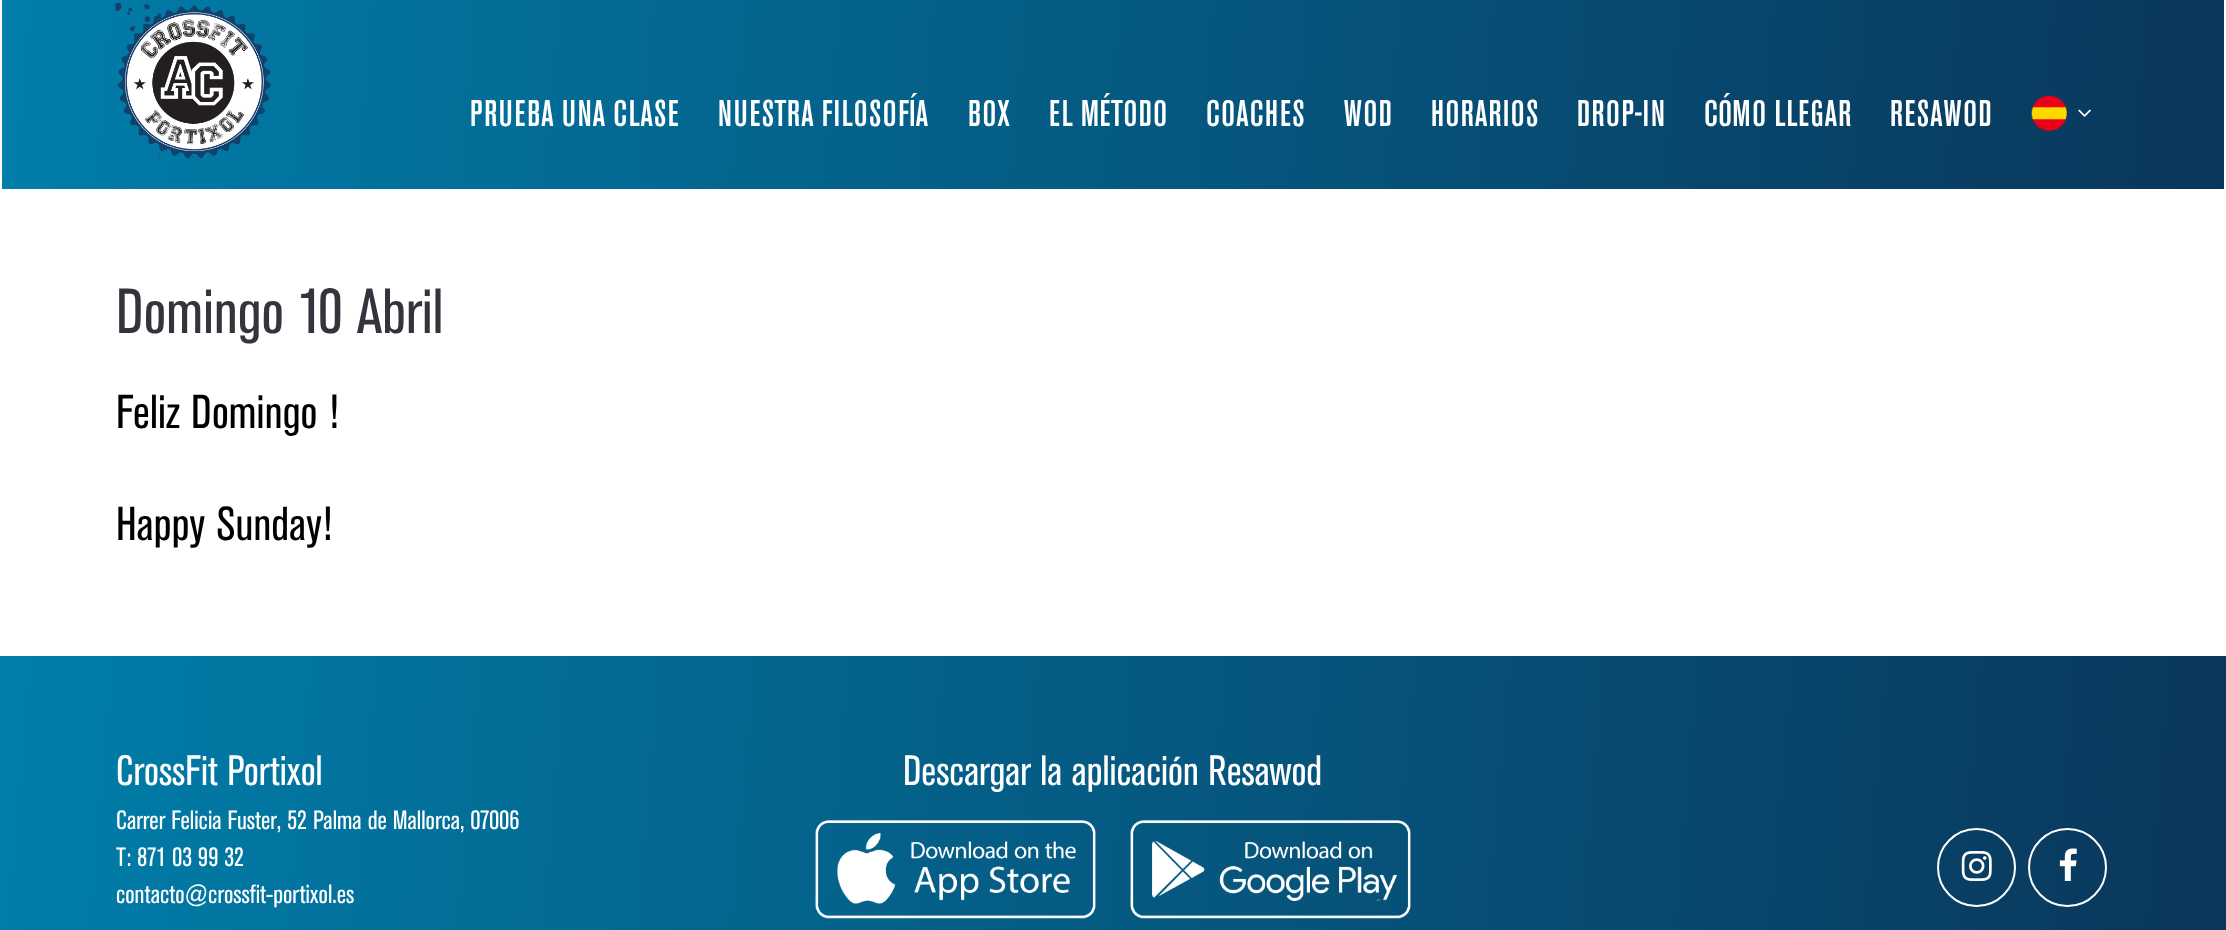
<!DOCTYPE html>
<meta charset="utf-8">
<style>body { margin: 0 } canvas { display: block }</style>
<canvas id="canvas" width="2226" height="930"></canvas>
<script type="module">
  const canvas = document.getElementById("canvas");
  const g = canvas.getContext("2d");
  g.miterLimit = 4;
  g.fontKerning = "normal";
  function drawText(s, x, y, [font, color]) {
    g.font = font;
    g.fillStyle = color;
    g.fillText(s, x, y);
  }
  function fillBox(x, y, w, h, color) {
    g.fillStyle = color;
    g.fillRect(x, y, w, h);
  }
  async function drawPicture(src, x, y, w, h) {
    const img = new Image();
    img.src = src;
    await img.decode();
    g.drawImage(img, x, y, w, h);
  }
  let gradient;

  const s1 = ["500 36.75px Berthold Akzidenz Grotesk", "#FFFFFF"];
  const s2 = ["63px Berthold Akzidenz Grotesk", "#34343C"];
  const s3 = ["47.25px Berthold Akzidenz Grotesk", "#000000"];
  const s4 = ["42px Berthold Akzidenz Grotesk", "#FFFFFF"];
  const s5 = ["26.25px Berthold Akzidenz Grotesk", "#FFFFFF"];

  fillBox(0, 0, 2226, 930, "#FFFFFF");
  gradient = g.createLinearGradient(1.1, -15, 2225, 180);
  gradient.addColorStop(0, "#007EAA");
  gradient.addColorStop(1, "#0A365A");
  g.fillStyle = gradient;
  g.fillRect(2, 0, 2222, 187);
  gradient = g.createLinearGradient(1.1, 195, 2225, 390);
  gradient.addColorStop(0, "#007EAA");
  gradient.addColorStop(1, "#0A365A");
  g.fillStyle = gradient;
  g.fillRect(2, 187, 2222, 2);
  await drawPicture("pic1.png", 115, 3, 156, 157);
  await drawPicture("pic2.png", 2031, 95, 36, 36);
  await drawPicture("pic3.png", 2078, 109, 13, 8);
  g.letterSpacing = "0.4px";
  drawText("PRUEBA UNA CLASE", 470, 126, s1);
  drawText("NUESTRA FILOSOFÍA", 718, 126, s1);
  drawText("BOX", 968, 126, s1);
  drawText("EL MÉTODO", 1049, 126, s1);
  drawText("COACHES", 1206, 126, s1);
  drawText("WOD", 1344, 126, s1);
  drawText("HORARIOS", 1431, 126, s1);
  drawText("DROP-IN", 1577, 126, s1);
  drawText("CÓMO LLEGAR", 1704, 126, s1);
  drawText("RESAWOD", 1890, 126, s1);
  g.letterSpacing = "0.2px";
  drawText("Domingo 10 Abril", 116, 333, s2);
  drawText("Feliz Domingo !", 116, 428, s3);
  drawText("Happy Sunday!", 116, 540, s3);
  gradient = g.createLinearGradient(-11, 780, 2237, 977);
  gradient.addColorStop(0, "#007EAA");
  gradient.addColorStop(1, "#0A365A");
  g.fillStyle = gradient;
  g.fillRect(0, 656, 2226, 274);
  g.letterSpacing = "0px";
  drawText("CrossFit Portixol", 116, 785, s4);
  drawText("Carrer Felicia Fuster, 52 Palma de Mallorca, 07006", 116, 829, s5);
  drawText("T: 871 03 99 32", 116, 866, s5);
  drawText("contacto@crossfit-portixol.es", 116, 903, s5);
  drawText("Descargar la aplicación Resawod", 903, 785, s4);
  await drawPicture("pic4.png", 815, 820, 281, 99);
  await drawPicture("pic5.png", 1130, 820, 281, 99);
  g.beginPath();
  g.arc(1976.5, 867.5, 38.5, 0, Math.PI * 2);
  g.strokeStyle = "#FFFFFF";
  g.lineWidth = 2;
  g.stroke();
  await drawPicture("pic6.png", 1961, 851, 31, 30);
  g.beginPath();
  g.arc(2067.5, 867.5, 38.5, 0, Math.PI * 2);
  g.stroke();
  await drawPicture("pic7.png", 2059, 848, 18, 33);
</script>
